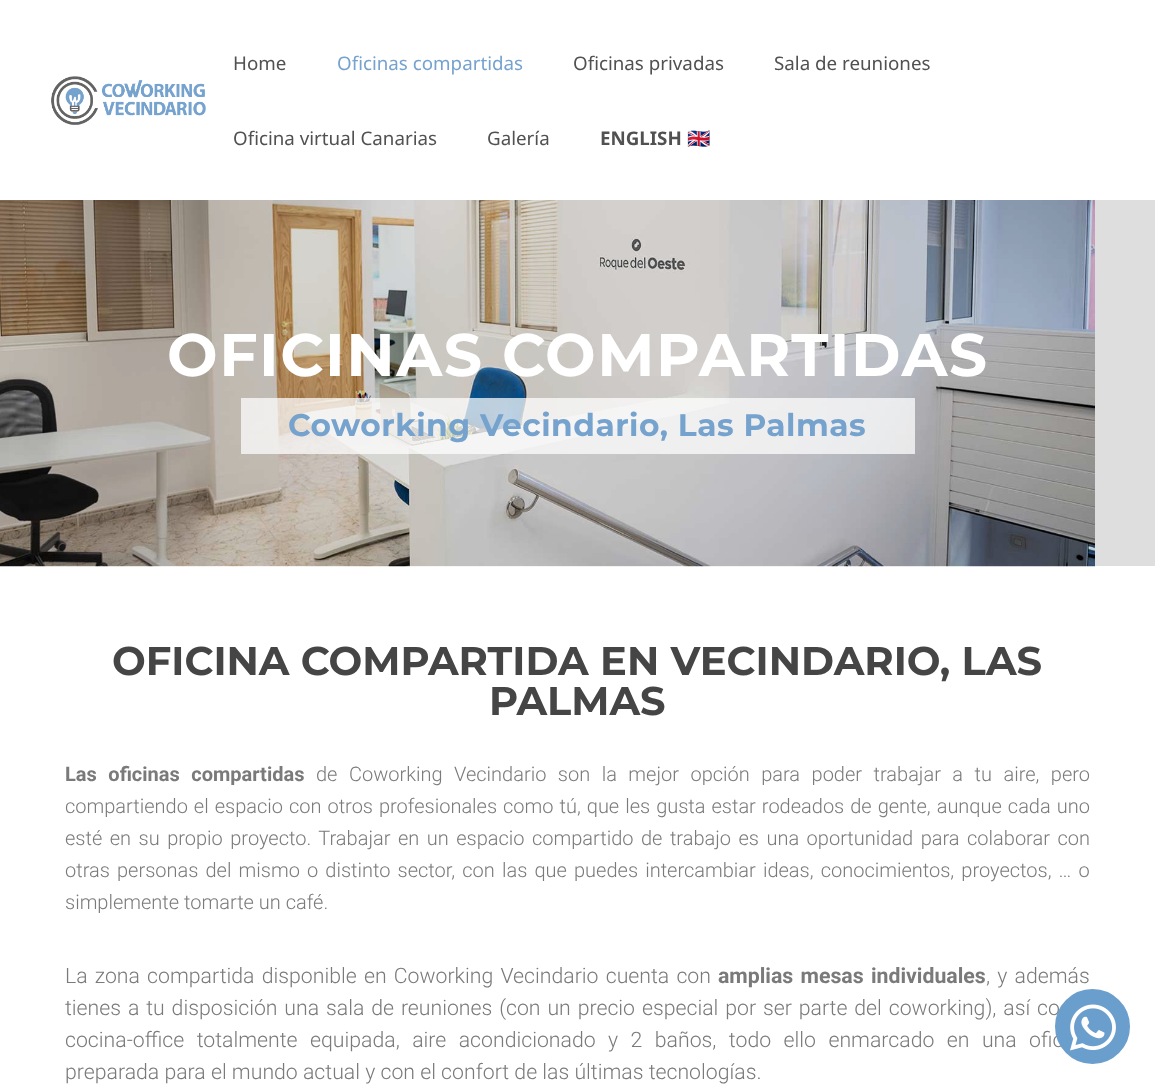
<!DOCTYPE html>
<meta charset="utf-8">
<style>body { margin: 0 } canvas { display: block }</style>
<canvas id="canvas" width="1155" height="1088"></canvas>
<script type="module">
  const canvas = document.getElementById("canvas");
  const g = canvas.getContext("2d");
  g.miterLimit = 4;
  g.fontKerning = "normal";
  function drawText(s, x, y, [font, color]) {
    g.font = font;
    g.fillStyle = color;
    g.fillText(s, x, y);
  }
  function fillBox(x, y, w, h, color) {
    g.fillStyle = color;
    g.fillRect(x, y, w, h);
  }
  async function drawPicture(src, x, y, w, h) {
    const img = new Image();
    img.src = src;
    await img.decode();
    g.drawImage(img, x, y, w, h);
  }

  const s1 = ["18.75px Noto Sans", "#515151"];
  const s2 = ["18.75px Noto Sans", "#76A2CE"];
  const s3 = ["bold 18.75px Noto Sans", "#515151"];
  const s4 = ["18.75px Noto Color Emoji", "#515151"];
  const s5 = ["bold 60px Montserrat", "#FFFFFF"];
  const s6 = ["bold 31.25px Montserrat", "#76A2CE"];
  const s7 = ["bold 40px Montserrat", "#454545"];
  const s8 = ["bold 20px Roboto", "#7A7A7A"];
  const s9 = ["300 20px Roboto", "#7A7A7A"];
  const s10 = ["300 21.25px Roboto", "#7A7A7A"];
  const s11 = ["bold 21.25px Roboto", "#7A7A7A"];

  fillBox(0, 0, 1155, 1088, "#FFFFFF");
  fillBox(1095, 200, 60, 366, "#DEDEDE");
  await drawPicture("pic1.png", 51, 76, 155, 49);
  drawText("Home", 233, 70, s1);
  drawText("Oficinas compartidas", 337, 70, s2);
  drawText("Oficinas privadas", 573, 70, s1);
  drawText("Sala de reuniones", 774, 70, s1);
  drawText("Oficina virtual Canarias", 233, 145, s1);
  drawText("Galería", 487, 145, s1);
  drawText("ENGLISH", 600, 145, s3);
  drawText("🇬🇧", 687, 145, s4);
  await drawPicture("pic2.png", 0, 200, 1095, 367);
  g.letterSpacing = "1.5px";
  drawText("OFICINAS COMPARTIDAS", 167, 376, s5);
  fillBox(241, 398, 674, 56, "rgba(255, 255, 255, 0.73)");
  g.letterSpacing = "0.5px";
  drawText("Coworking Vecindario, Las Palmas", 288, 436, s6);
  g.letterSpacing = "0px";
  drawText("OFICINA COMPARTIDA EN VECINDARIO, LAS", 112, 675, s7);
  drawText("PALMAS", 489, 715, s7);
  g.wordSpacing = "6.6px";
  drawText("Las oficinas compartidas", 65, 781, s8);
  drawText("de Coworking Vecindario son la mejor opción para poder trabajar a tu aire, pero", 316, 781, s9);
  g.wordSpacing = "1.1px";
  drawText("compartiendo el espacio con otros profesionales como tú, que les gusta estar rodeados de gente, aunque cada uno", 65, 813, s9);
  g.wordSpacing = "2.6px";
  drawText("esté en su propio proyecto. Trabajar en un espacio compartido de trabajo es una oportunidad para colaborar con", 65, 845, s9);
  g.wordSpacing = "2.25px";
  drawText("otras personas del mismo o distinto sector, con las que puedes intercambiar ideas, conocimientos, proyectos, … o", 65, 877, s9);
  g.wordSpacing = "0px";
  drawText("simplemente tomarte un café.", 65, 909, s9);
  g.wordSpacing = "2px";
  drawText("La zona compartida disponible en Coworking Vecindario cuenta con", 65, 983, s10);
  drawText("amplias mesas individuales", 718, 983, s11);
  drawText(", y además", 986, 983, s10);
  g.wordSpacing = "1.7px";
  drawText("tienes a tu disposición una sala de reuniones (con un precio especial por ser parte del coworking), así co", 65, 1015, s10);
  g.wordSpacing = "7.25px";
  drawText("cocina-office totalmente equipada, aire acondicionado y 2 baños, todo ello enmarcado en una ofic", 65, 1047, s10);
  g.wordSpacing = "0px";
  drawText("preparada para el mundo actual y con el confort de las últimas tecnologías.", 65, 1079, s10);
  g.fillStyle = "#6A9ECC";
  g.beginPath();
  g.arc(1092.5, 1026.5, 36, 0, Math.PI * 2);
  g.fill();
  g.strokeStyle = "#6A9ECC";
  g.lineWidth = 3;
  g.stroke();
  await drawPicture("pic3.png", 1070, 1004, 46, 47);
</script>
